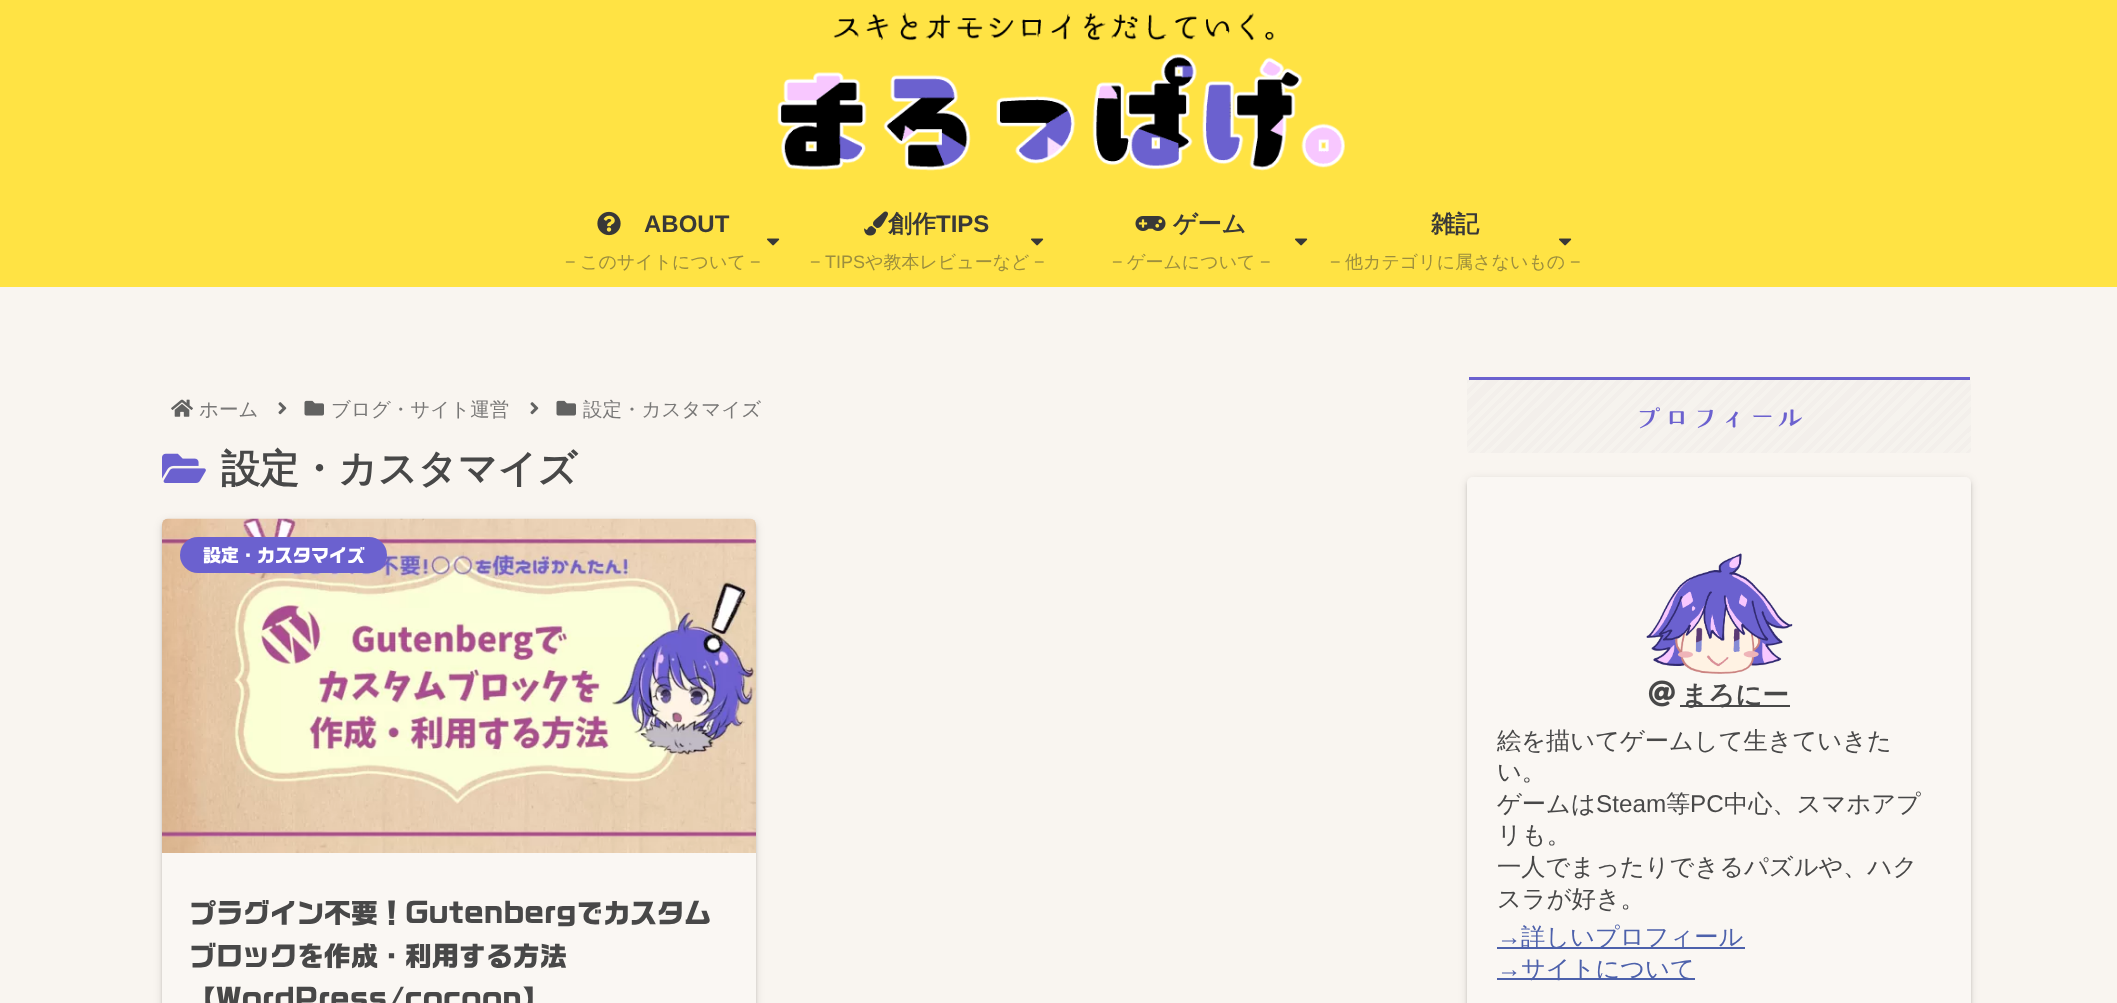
<!DOCTYPE html>
<meta charset="utf-8">
<style>body { margin: 0 } canvas { display: block }</style>
<canvas id="canvas" width="2117" height="1003"></canvas>
<script type="module">
  const canvas = document.getElementById("canvas");
  const g = canvas.getContext("2d");
  g.miterLimit = 4;
  g.fontKerning = "normal";
  function drawText(s, x, y, [font, color]) {
    g.font = font;
    g.fillStyle = color;
    g.fillText(s, x, y);
  }
  function fillBox(x, y, w, h, color) {
    g.fillStyle = color;
    g.fillRect(x, y, w, h);
  }
  function fillRounded(x, y, w, h, r, color) {
    g.fillStyle = color;
    g.beginPath();
    g.roundRect(x, y, w, h, r);
    g.fill();
  }
  async function drawPicture(src, x, y, w, h) {
    const img = new Image();
    img.src = src;
    await img.decode();
    g.drawImage(img, x, y, w, h);
  }
  let gradient;

  const s1 = ["bold 24px Liberation Sans", "#383838"];
  const s2 = ["18px Liberation Sans", "#9C8E3E"];
  const s3 = ["500 18px WenQuanYi Zen Hei", "#9C8E3E"];
  const s4 = ["bold 24px WenQuanYi Zen Hei", "#383838"];
  const s5 = ["500 19.5px WenQuanYi Zen Hei", "#797877"];
  const s6 = ["bold 39px WenQuanYi Zen Hei", "#484848"];
  const s7 = ["18px 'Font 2'", "#FFFFFF"];
  const s8 = ["27px 'Font 2'", "#484848"];
  const s9 = ["28.5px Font", "#6B61CF"];
  const s10 = ["bold 26.5px WenQuanYi Zen Hei", "#484848"];
  const s11 = ["500 24.25px WenQuanYi Zen Hei", "#484848"];
  const s12 = ["24.25px Liberation Sans", "#484848"];
  const s13 = ["24.25px Liberation Sans", "#4D61AB"];
  const s14 = ["500 24.25px WenQuanYi Zen Hei", "#4D61AB"];

  fillBox(0, 0, 2117, 1003, "#F9F5F0");
  fillBox(0, 0, 2117, 287, "#FFE344");
  await drawPicture("pic1.png", 777, 12, 568, 159);
  await drawPicture("pic2.png", 597, 211, 24, 25);
  drawText("ABOUT", 644, 232, s1);
  drawText("−", 565, 268, s2);
  drawText("このサイトについて", 580, 268, s3);
  drawText("−", 750, 268, s2);
  await drawPicture("pic3.png", 767, 238, 13, 8);
  await drawPicture("pic4.png", 864, 211, 24, 25);
  drawText("創作", 888, 232, s4);
  drawText("TIPS", 936, 232, s1);
  drawText("−", 810, 268, s2);
  drawText("TIPS", 825, 268, s2);
  drawText("や教本レビューなど", 865, 268, s3);
  drawText("−", 1034, 268, s2);
  await drawPicture("pic3.png", 1031, 238, 13, 8);
  await drawPicture("pic5.png", 1135, 216, 31, 15);
  drawText("ゲーム", 1173, 232, s4);
  drawText("−", 1112, 268, s2);
  drawText("ゲームについて", 1127, 268, s3);
  drawText("−", 1260, 268, s2);
  await drawPicture("pic3.png", 1295, 238, 13, 8);
  drawText("雑記", 1431, 232, s4);
  drawText("−", 1330, 268, s2);
  drawText("他カテゴリに属さないもの", 1345, 268, s3);
  drawText("−", 1570, 268, s2);
  await drawPicture("pic3.png", 1559, 238, 13, 8);
  await drawPicture("pic6.png", 171, 399, 22, 18);
  drawText("ホーム", 199, 416, s5);
  await drawPicture("pic7.png", 278, 402, 9, 13);
  await drawPicture("pic8.png", 304, 400, 20, 16);
  drawText("ブログ・サイト運営", 331, 416, s5);
  await drawPicture("pic7.png", 530, 402, 9, 13);
  await drawPicture("pic8.png", 556, 400, 20, 16);
  drawText("設定・カスタマイズ", 583, 416, s5);
  await drawPicture("pic9.png", 162, 453, 44, 30);
  drawText("設定・カスタマイズ", 221, 482, s6);
  g.save();
  g.beginPath();
  g.moveTo(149, 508);
  g.lineTo(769, 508);
  g.lineTo(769, 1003);
  g.lineTo(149, 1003);
  g.closePath();
  g.moveTo(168, 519);
  g.lineTo(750, 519);
  g.bezierCurveTo(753.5, 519, 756, 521.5, 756, 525);
  g.lineTo(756, 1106);
  g.bezierCurveTo(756, 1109.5, 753.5, 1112, 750, 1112);
  g.lineTo(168, 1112);
  g.bezierCurveTo(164.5, 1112, 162, 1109.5, 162, 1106);
  g.lineTo(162, 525);
  g.bezierCurveTo(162, 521.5, 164.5, 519, 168, 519);
  g.closePath();
  g.clip("evenodd");
  g.fillStyle = "rgba(0, 0, 0, 0.12)";
  g.filter = "blur(4px)";
  g.beginPath();
  g.roundRect(162, 521, 594, 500, 6);
  g.fill();
  g.filter = "none";
  g.restore();
  g.save();
  g.beginPath();
  g.moveTo(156, 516);
  g.lineTo(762, 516);
  g.lineTo(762, 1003);
  g.lineTo(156, 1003);
  g.closePath();
  g.moveTo(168, 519);
  g.lineTo(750, 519);
  g.bezierCurveTo(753.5, 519, 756, 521.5, 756, 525);
  g.lineTo(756, 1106);
  g.bezierCurveTo(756, 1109.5, 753.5, 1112, 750, 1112);
  g.lineTo(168, 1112);
  g.bezierCurveTo(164.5, 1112, 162, 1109.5, 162, 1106);
  g.lineTo(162, 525);
  g.bezierCurveTo(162, 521.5, 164.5, 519, 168, 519);
  g.closePath();
  g.clip("evenodd");
  g.fillStyle = "rgba(0, 0, 0, 0.14)";
  g.filter = "blur(1.5px)";
  g.beginPath();
  g.roundRect(162, 522, 594, 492, 6);
  g.fill();
  g.filter = "none";
  g.restore();
  fillRounded(162, 519, 594, 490, 6, "rgba(255, 255, 255, 0.2)");
  await drawPicture("pic10.png", 162, 518, 594, 335);
  fillRounded(180, 537, 207, 36, 18, "#6B61CF");
  drawText("設定・カスタマイズ", 203, 562, s7);
  drawText("プラグイン不要！Gutenbergでカスタム", 189, 923, s8);
  drawText("ブロックを作成・利用する方法", 189, 966, s8);
  drawText("【WordPress/cocoon】", 189, 1009, s8);
  gradient = g.createLinearGradient(1863, 561, 1571, 268);
  gradient.addColorStop(0, "#F3EFEB");
  gradient.addColorStop(0.01, "#F3EFEB");
  gradient.addColorStop(0.01, "#F6F3EE");
  gradient.addColorStop(0.02, "#F6F3EE");
  gradient.addColorStop(0.02, "#F3EFEB");
  gradient.addColorStop(0.03, "#F3EFEB");
  gradient.addColorStop(0.03, "#F6F3EE");
  gradient.addColorStop(0.04, "#F6F3EE");
  gradient.addColorStop(0.04, "#F3EFEB");
  gradient.addColorStop(0.05, "#F3EFEB");
  gradient.addColorStop(0.05, "#F6F3EE");
  gradient.addColorStop(0.07, "#F6F3EE");
  gradient.addColorStop(0.07, "#F3EFEB");
  gradient.addColorStop(0.08, "#F3EFEB");
  gradient.addColorStop(0.08, "#F6F3EE");
  gradient.addColorStop(0.09, "#F6F3EE");
  gradient.addColorStop(0.09, "#F3EFEB");
  gradient.addColorStop(0.1, "#F3EFEB");
  gradient.addColorStop(0.1, "#F6F3EE");
  gradient.addColorStop(0.11, "#F6F3EE");
  gradient.addColorStop(0.11, "#F3EFEB");
  gradient.addColorStop(0.12, "#F3EFEB");
  gradient.addColorStop(0.12, "#F6F3EE");
  gradient.addColorStop(0.13, "#F6F3EE");
  gradient.addColorStop(0.13, "#F3EFEB");
  gradient.addColorStop(0.14, "#F3EFEB");
  gradient.addColorStop(0.14, "#F6F3EE");
  gradient.addColorStop(0.15, "#F6F3EE");
  gradient.addColorStop(0.15, "#F3EFEB");
  gradient.addColorStop(0.16, "#F3EFEB");
  gradient.addColorStop(0.16, "#F6F3EE");
  gradient.addColorStop(0.17, "#F6F3EE");
  gradient.addColorStop(0.17, "#F3EFEB");
  gradient.addColorStop(0.18, "#F3EFEB");
  gradient.addColorStop(0.18, "#F6F3EE");
  gradient.addColorStop(0.2, "#F6F3EE");
  gradient.addColorStop(0.2, "#F3EFEB");
  gradient.addColorStop(0.21, "#F3EFEB");
  gradient.addColorStop(0.21, "#F6F3EE");
  gradient.addColorStop(0.22, "#F6F3EE");
  gradient.addColorStop(0.22, "#F3EFEB");
  gradient.addColorStop(0.23, "#F3EFEB");
  gradient.addColorStop(0.23, "#F6F3EE");
  gradient.addColorStop(0.24, "#F6F3EE");
  gradient.addColorStop(0.24, "#F3EFEB");
  gradient.addColorStop(0.25, "#F3EFEB");
  gradient.addColorStop(0.25, "#F6F3EE");
  gradient.addColorStop(0.26, "#F6F3EE");
  gradient.addColorStop(0.26, "#F3EFEB");
  gradient.addColorStop(0.27, "#F3EFEB");
  gradient.addColorStop(0.27, "#F6F3EE");
  gradient.addColorStop(0.28, "#F6F3EE");
  gradient.addColorStop(0.28, "#F3EFEB");
  gradient.addColorStop(0.29, "#F3EFEB");
  gradient.addColorStop(0.29, "#F6F3EE");
  gradient.addColorStop(0.3, "#F6F3EE");
  gradient.addColorStop(0.3, "#F3EFEB");
  gradient.addColorStop(0.32, "#F3EFEB");
  gradient.addColorStop(0.32, "#F6F3EE");
  gradient.addColorStop(0.33, "#F6F3EE");
  gradient.addColorStop(0.33, "#F3EFEB");
  gradient.addColorStop(0.34, "#F3EFEB");
  gradient.addColorStop(0.34, "#F6F3EE");
  gradient.addColorStop(0.35, "#F6F3EE");
  gradient.addColorStop(0.35, "#F3EFEB");
  gradient.addColorStop(0.36, "#F3EFEB");
  gradient.addColorStop(0.36, "#F6F3EE");
  gradient.addColorStop(0.37, "#F6F3EE");
  gradient.addColorStop(0.37, "#F3EFEB");
  gradient.addColorStop(0.38, "#F3EFEB");
  gradient.addColorStop(0.38, "#F6F3EE");
  gradient.addColorStop(0.39, "#F6F3EE");
  gradient.addColorStop(0.39, "#F3EFEB");
  gradient.addColorStop(0.4, "#F3EFEB");
  gradient.addColorStop(0.4, "#F6F3EE");
  gradient.addColorStop(0.41, "#F6F3EE");
  gradient.addColorStop(0.41, "#F3EFEB");
  gradient.addColorStop(0.42, "#F3EFEB");
  gradient.addColorStop(0.42, "#F6F3EE");
  gradient.addColorStop(0.43, "#F6F3EE");
  gradient.addColorStop(0.43, "#F3EFEB");
  gradient.addColorStop(0.45, "#F3EFEB");
  gradient.addColorStop(0.45, "#F6F3EE");
  gradient.addColorStop(0.46, "#F6F3EE");
  gradient.addColorStop(0.46, "#F3EFEB");
  gradient.addColorStop(0.47, "#F3EFEB");
  gradient.addColorStop(0.47, "#F6F3EE");
  gradient.addColorStop(0.48, "#F6F3EE");
  gradient.addColorStop(0.48, "#F3EFEB");
  gradient.addColorStop(0.49, "#F3EFEB");
  gradient.addColorStop(0.49, "#F6F3EE");
  gradient.addColorStop(0.5, "#F6F3EE");
  gradient.addColorStop(0.5, "#F3EFEB");
  gradient.addColorStop(0.51, "#F3EFEB");
  gradient.addColorStop(0.51, "#F6F3EE");
  gradient.addColorStop(0.52, "#F6F3EE");
  gradient.addColorStop(0.52, "#F3EFEB");
  gradient.addColorStop(0.53, "#F3EFEB");
  gradient.addColorStop(0.53, "#F6F3EE");
  gradient.addColorStop(0.54, "#F6F3EE");
  gradient.addColorStop(0.54, "#F3EFEB");
  gradient.addColorStop(0.55, "#F3EFEB");
  gradient.addColorStop(0.55, "#F6F3EE");
  gradient.addColorStop(0.57, "#F6F3EE");
  gradient.addColorStop(0.57, "#F3EFEB");
  gradient.addColorStop(0.58, "#F3EFEB");
  gradient.addColorStop(0.58, "#F6F3EE");
  gradient.addColorStop(0.59, "#F6F3EE");
  gradient.addColorStop(0.59, "#F3EFEB");
  gradient.addColorStop(0.6, "#F3EFEB");
  gradient.addColorStop(0.6, "#F6F3EE");
  gradient.addColorStop(0.61, "#F6F3EE");
  gradient.addColorStop(0.61, "#F3EFEB");
  gradient.addColorStop(0.62, "#F3EFEB");
  gradient.addColorStop(0.62, "#F6F3EE");
  gradient.addColorStop(0.63, "#F6F3EE");
  gradient.addColorStop(0.63, "#F3EFEB");
  gradient.addColorStop(0.64, "#F3EFEB");
  gradient.addColorStop(0.64, "#F6F3EE");
  gradient.addColorStop(0.65, "#F6F3EE");
  gradient.addColorStop(0.65, "#F3EFEB");
  gradient.addColorStop(0.66, "#F3EFEB");
  gradient.addColorStop(0.66, "#F6F3EE");
  gradient.addColorStop(0.67, "#F6F3EE");
  gradient.addColorStop(0.67, "#F3EFEB");
  gradient.addColorStop(0.68, "#F3EFEB");
  gradient.addColorStop(0.68, "#F6F3EE");
  gradient.addColorStop(0.7, "#F6F3EE");
  gradient.addColorStop(0.7, "#F3EFEB");
  gradient.addColorStop(0.71, "#F3EFEB");
  gradient.addColorStop(0.71, "#F6F3EE");
  gradient.addColorStop(0.72, "#F6F3EE");
  gradient.addColorStop(0.72, "#F3EFEB");
  gradient.addColorStop(0.73, "#F3EFEB");
  gradient.addColorStop(0.73, "#F6F3EE");
  gradient.addColorStop(0.74, "#F6F3EE");
  gradient.addColorStop(0.74, "#F3EFEB");
  gradient.addColorStop(0.75, "#F3EFEB");
  gradient.addColorStop(0.75, "#F6F3EE");
  gradient.addColorStop(0.76, "#F6F3EE");
  gradient.addColorStop(0.76, "#F3EFEB");
  gradient.addColorStop(0.77, "#F3EFEB");
  gradient.addColorStop(0.77, "#F6F3EE");
  gradient.addColorStop(0.78, "#F6F3EE");
  gradient.addColorStop(0.78, "#F3EFEB");
  gradient.addColorStop(0.79, "#F3EFEB");
  gradient.addColorStop(0.79, "#F6F3EE");
  gradient.addColorStop(0.8, "#F6F3EE");
  gradient.addColorStop(0.8, "#F3EFEB");
  gradient.addColorStop(0.82, "#F3EFEB");
  gradient.addColorStop(0.82, "#F6F3EE");
  gradient.addColorStop(0.83, "#F6F3EE");
  gradient.addColorStop(0.83, "#F3EFEB");
  gradient.addColorStop(0.84, "#F3EFEB");
  gradient.addColorStop(0.84, "#F6F3EE");
  gradient.addColorStop(0.85, "#F6F3EE");
  gradient.addColorStop(0.85, "#F3EFEB");
  gradient.addColorStop(0.86, "#F3EFEB");
  gradient.addColorStop(0.86, "#F6F3EE");
  gradient.addColorStop(0.87, "#F6F3EE");
  gradient.addColorStop(0.87, "#F3EFEB");
  gradient.addColorStop(0.88, "#F3EFEB");
  gradient.addColorStop(0.88, "#F6F3EE");
  gradient.addColorStop(0.89, "#F6F3EE");
  gradient.addColorStop(0.89, "#F3EFEB");
  gradient.addColorStop(0.9, "#F3EFEB");
  gradient.addColorStop(0.9, "#F6F3EE");
  gradient.addColorStop(0.91, "#F6F3EE");
  gradient.addColorStop(0.91, "#F3EFEB");
  gradient.addColorStop(0.92, "#F3EFEB");
  gradient.addColorStop(0.92, "#F6F3EE");
  gradient.addColorStop(0.93, "#F6F3EE");
  gradient.addColorStop(0.93, "#F3EFEB");
  gradient.addColorStop(0.95, "#F3EFEB");
  gradient.addColorStop(0.95, "#F6F3EE");
  gradient.addColorStop(0.96, "#F6F3EE");
  gradient.addColorStop(0.96, "#F3EFEB");
  gradient.addColorStop(0.97, "#F3EFEB");
  gradient.addColorStop(0.97, "#F6F3EE");
  gradient.addColorStop(0.98, "#F6F3EE");
  gradient.addColorStop(0.98, "#F3EFEB");
  gradient.addColorStop(0.99, "#F3EFEB");
  gradient.addColorStop(0.99, "#F6F3EE");
  gradient.addColorStop(1, "#F6F3EE");
  g.fillStyle = gradient;
  g.beginPath();
  g.moveTo(1470, 380);
  g.lineTo(1971, 380);
  g.lineTo(1971, 450);
  g.bezierCurveTo(1971, 452, 1970, 453, 1968, 453);
  g.lineTo(1470, 453);
  g.bezierCurveTo(1468, 453, 1467, 452, 1467, 450);
  g.lineTo(1467, 380);
  g.closePath();
  g.fill();
  fillBox(1469, 377, 501, 3, "#6B61CF");
  drawText("プロフィール", 1634, 427, s9);
  g.save();
  g.beginPath();
  g.moveTo(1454, 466);
  g.lineTo(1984, 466);
  g.lineTo(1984, 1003);
  g.lineTo(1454, 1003);
  g.closePath();
  g.moveTo(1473, 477);
  g.lineTo(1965, 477);
  g.bezierCurveTo(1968.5, 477, 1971, 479.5, 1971, 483);
  g.lineTo(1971, 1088);
  g.bezierCurveTo(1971, 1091.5, 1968.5, 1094, 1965, 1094);
  g.lineTo(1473, 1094);
  g.bezierCurveTo(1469.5, 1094, 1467, 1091.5, 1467, 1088);
  g.lineTo(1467, 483);
  g.bezierCurveTo(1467, 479.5, 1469.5, 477, 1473, 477);
  g.closePath();
  g.clip("evenodd");
  g.fillStyle = "rgba(0, 0, 0, 0.12)";
  g.filter = "blur(4px)";
  g.beginPath();
  g.roundRect(1467, 479, 504, 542, 6);
  g.fill();
  g.filter = "none";
  g.restore();
  g.save();
  g.beginPath();
  g.moveTo(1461, 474);
  g.lineTo(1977, 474);
  g.lineTo(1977, 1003);
  g.lineTo(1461, 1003);
  g.closePath();
  g.moveTo(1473, 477);
  g.lineTo(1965, 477);
  g.bezierCurveTo(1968.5, 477, 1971, 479.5, 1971, 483);
  g.lineTo(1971, 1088);
  g.bezierCurveTo(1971, 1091.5, 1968.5, 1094, 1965, 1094);
  g.lineTo(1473, 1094);
  g.bezierCurveTo(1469.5, 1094, 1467, 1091.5, 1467, 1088);
  g.lineTo(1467, 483);
  g.bezierCurveTo(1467, 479.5, 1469.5, 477, 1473, 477);
  g.closePath();
  g.clip("evenodd");
  g.fillStyle = "rgba(0, 0, 0, 0.14)";
  g.filter = "blur(1.5px)";
  g.beginPath();
  g.roundRect(1467, 480, 504, 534, 6);
  g.fill();
  g.filter = "none";
  g.restore();
  fillRounded(1467, 477, 504, 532, 6, "rgba(255, 255, 255, 0.2)");
  await drawPicture("pic11.png", 1646, 553, 147, 121);
  await drawPicture("pic12.png", 1648, 680, 27, 27);
  fillBox(1680, 705, 110, 2, "#484848");
  drawText("まろにー", 1681, 704, s10);
  drawText("絵を描いてゲームして生きていきた", 1497, 749, s11);
  drawText("い。", 1497, 780, s11);
  drawText("ゲームは", 1497, 812, s11);
  drawText("Steam", 1596, 812, s12);
  drawText("等", 1666, 812, s11);
  drawText("PC", 1690, 812, s12);
  drawText("中心、スマホアプ", 1724, 812, s11);
  drawText("リも。", 1497, 843, s11);
  drawText("一人でまったりできるパズルや、ハク", 1497, 875, s11);
  drawText("スラが好き。", 1497, 907, s11);
  drawText("→", 1497, 945, s13);
  fillBox(1497, 947, 248, 2, "#4D61AB");
  drawText("詳しいプロフィール", 1521, 945, s14);
  drawText("→", 1497, 977, s13);
  fillBox(1497, 978, 198, 2, "#4D61AB");
  drawText("サイトについて", 1521, 977, s14);
</script>
